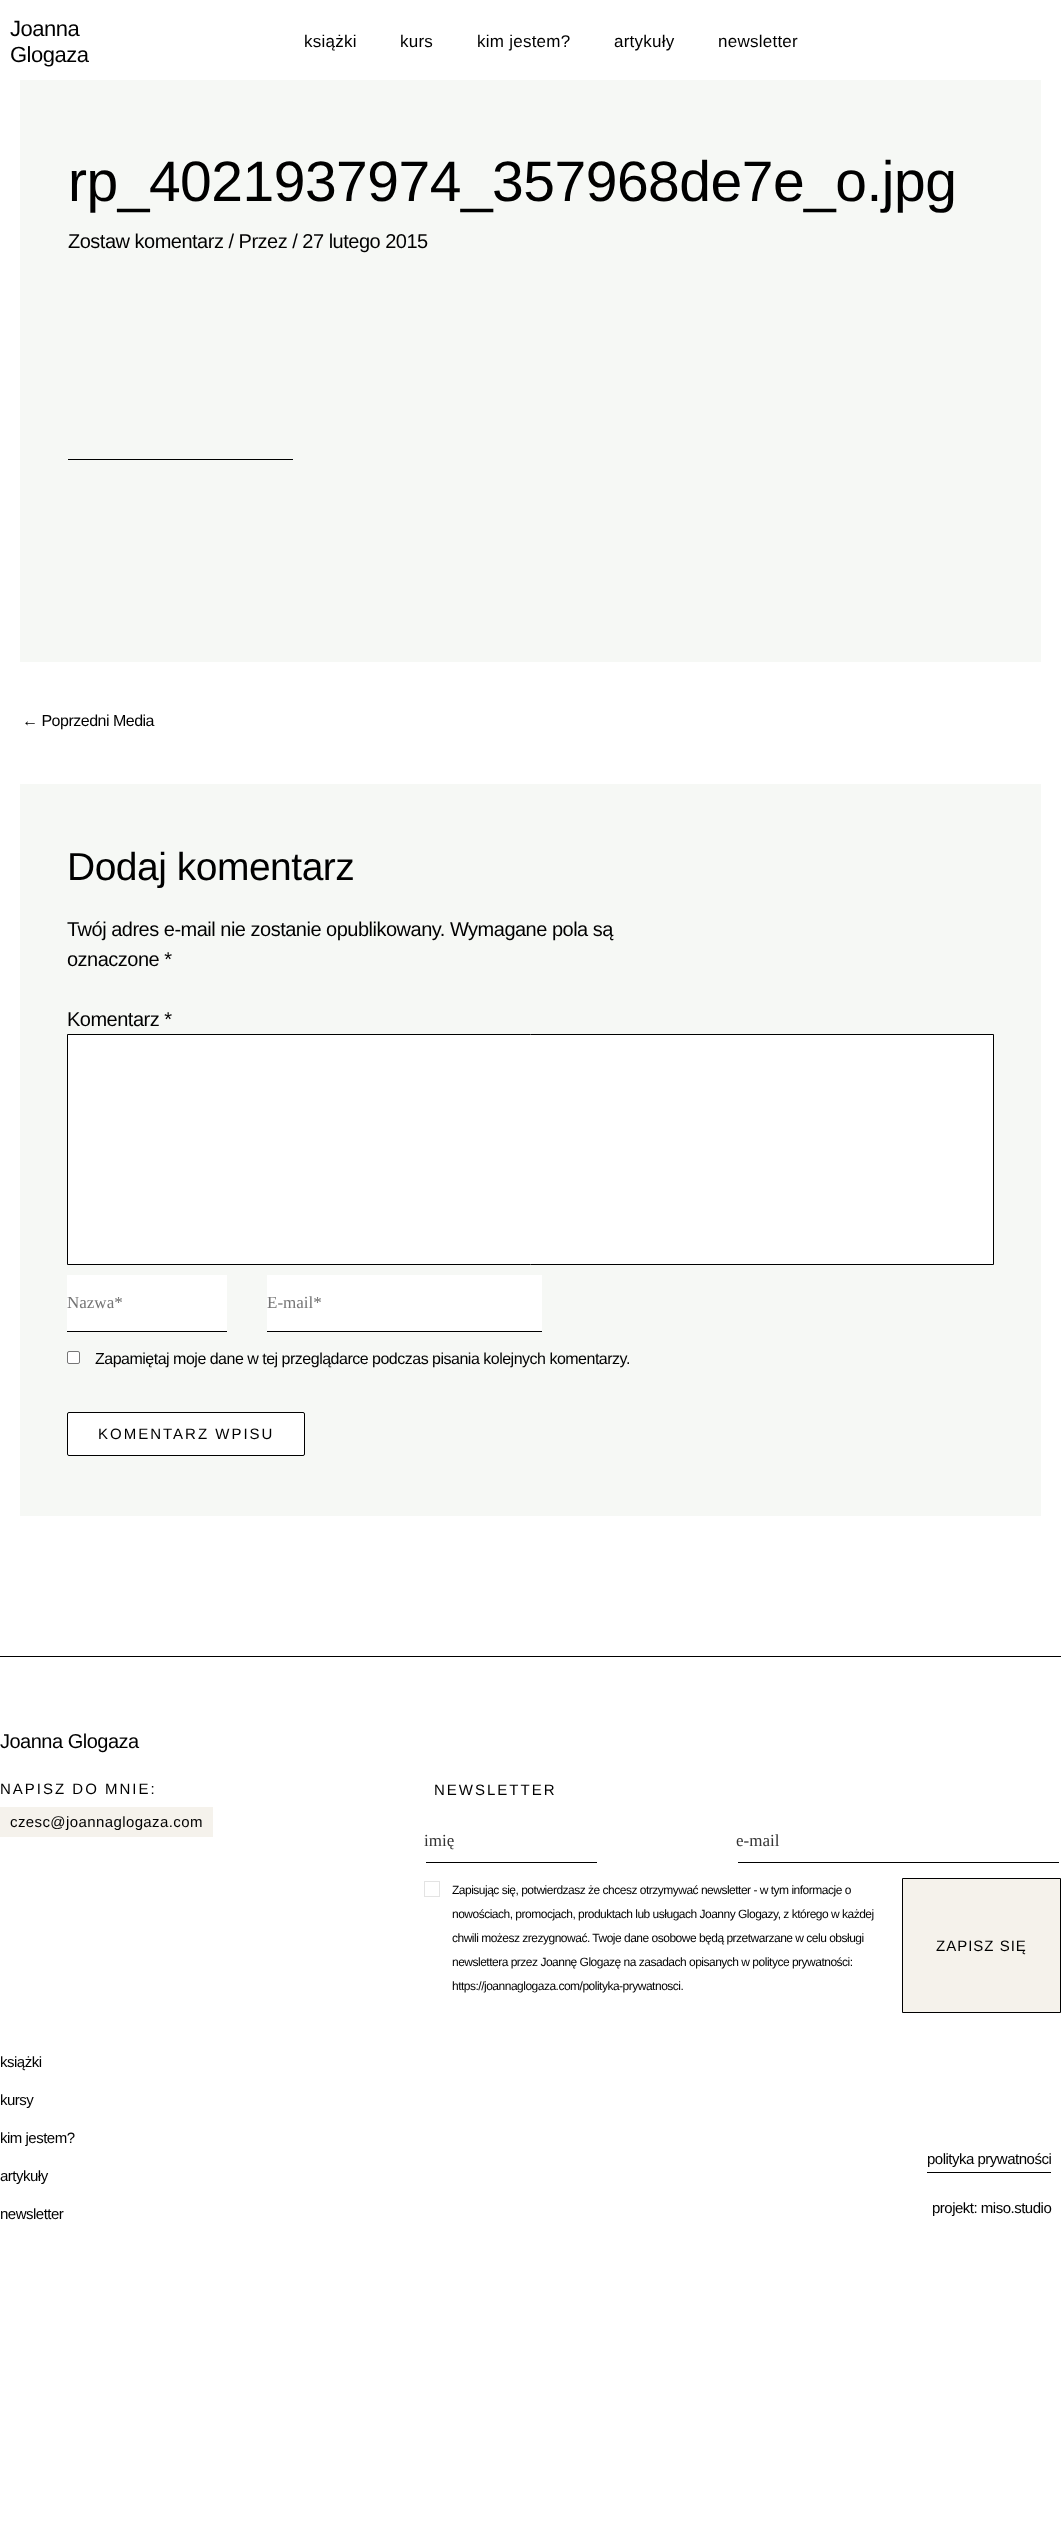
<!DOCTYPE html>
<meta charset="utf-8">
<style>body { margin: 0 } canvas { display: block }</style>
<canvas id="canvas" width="1061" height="2521"></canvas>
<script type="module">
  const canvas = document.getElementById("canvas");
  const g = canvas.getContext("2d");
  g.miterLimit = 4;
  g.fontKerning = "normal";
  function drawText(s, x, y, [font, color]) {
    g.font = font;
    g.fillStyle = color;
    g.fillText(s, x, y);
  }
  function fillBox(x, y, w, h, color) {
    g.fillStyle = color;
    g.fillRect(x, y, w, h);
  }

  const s1 = ["22px Liberation Sans", "#000000"];
  const s2 = ["17px Liberation Sans", "#000000"];
  const s3 = ["57px Liberation Sans", "#000000"];
  const s4 = ["20px Liberation Sans", "#000000"];
  const s5 = ["16px Liberation Sans", "#000000"];
  const s6 = ["39px Liberation Sans", "#000000"];
  const s7 = ["17px Liberation Serif", "#757575"];
  const s8 = ["15px Liberation Sans", "#000000"];
  const s9 = ["17px Liberation Serif", "#333333"];
  const s10 = ["12px Liberation Sans", "#000000"];

  fillBox(0, 0, 1061, 2521, "#FFFFFF");
  g.letterSpacing = "-0.5px";
  drawText("Joanna", 10, 36, s1);
  drawText("Glogaza", 10, 62, s1);
  g.letterSpacing = "0.25px";
  drawText("książki", 304, 47, s2);
  drawText("kurs", 400, 47, s2);
  drawText("kim jestem?", 477, 47, s2);
  drawText("artykuły", 614, 47, s2);
  drawText("newsletter", 718, 47, s2);
  fillBox(20, 80, 1021, 582, "#F6F8F5");
  g.letterSpacing = "-0.5px";
  drawText("rp_4021937974_357968de7e_o.jpg", 68, 201, s3);
  drawText("Zostaw komentarz / Przez / 27 lutego 2015", 68, 248, s4);
  fillBox(68, 459, 225, 1, "#000000");
  drawText("← Poprzedni Media", 22, 726, s5);
  fillBox(20, 784, 1021, 732, "#F6F8F5");
  drawText("Dodaj komentarz", 67, 880, s6);
  drawText("Twój adres e-mail nie zostanie opublikowany. Wymagane pola są", 67, 936, s4);
  drawText("oznaczone *", 67, 966, s4);
  drawText("Komentarz *", 67, 1026, s4);
  g.fillStyle = "#FFFFFF";
  g.beginPath();
  g.rect(67.5, 1034.5, 926, 230);
  g.fill();
  g.strokeStyle = "#000000";
  g.stroke();
  fillBox(67, 1275, 160, 56, "#FFFFFF");
  fillBox(67, 1331, 160, 1, "#000000");
  g.letterSpacing = "0px";
  drawText("Nazwa*", 67, 1308, s7);
  fillBox(267, 1275, 275, 56, "#FFFFFF");
  fillBox(267, 1331, 275, 1, "#000000");
  drawText("E-mail*", 267, 1308, s7);
  g.fillStyle = "#FFFFFF";
  g.beginPath();
  g.roundRect(67.5, 1351.5, 12, 12, 1.5);
  g.fill();
  g.strokeStyle = "#767676";
  g.stroke();
  g.letterSpacing = "-0.5px";
  drawText("Zapamiętaj moje dane w tej przeglądarce podczas pisania kolejnych komentarzy.", 95, 1364, s5);
  g.fillStyle = "#FFFFFF";
  g.beginPath();
  g.roundRect(67.5, 1412.5, 237, 43, 1.5);
  g.fill();
  g.strokeStyle = "#000000";
  g.stroke();
  g.letterSpacing = "2px";
  drawText("KOMENTARZ WPISU", 98, 1439, s8);
  fillBox(0, 1656, 1061, 1, "#000000");
  g.letterSpacing = "-0.5px";
  drawText("Joanna Glogaza", 0, 1748, s4);
  g.letterSpacing = "2px";
  drawText("NAPISZ DO MNIE:", 0, 1794, s8);
  fillBox(0, 1807, 213, 30, "#F5F2EC");
  g.letterSpacing = "0.4px";
  drawText("czesc@joannaglogaza.com", 10, 1827, s8);
  g.letterSpacing = "2px";
  drawText("NEWSLETTER", 434, 1795, s8);
  fillBox(426, 1862, 171, 1, "#000000");
  g.letterSpacing = "0px";
  drawText("imię", 424, 1846, s9);
  fillBox(738, 1862, 321, 1, "#000000");
  drawText("e-mail", 736, 1846, s9);
  g.strokeStyle = "#E3E3E3";
  g.strokeRect(424.5, 1881.5, 15, 15);
  g.letterSpacing = "-0.5px";
  drawText("Zapisując się, potwierdzasz że chcesz otrzymywać newsletter - w tym informacje o", 452, 1894, s10);
  drawText("nowościach, promocjach, produktach lub usługach Joanny Glogazy, z którego w każdej", 452, 1918, s10);
  drawText("chwili możesz zrezygnować. Twoje dane osobowe będą przetwarzane w celu obsługi", 452, 1942, s10);
  drawText("newslettera przez Joannę Glogazę na zasadach opisanych w polityce prywatności:", 452, 1966, s10);
  drawText("https://joannaglogaza.com/polityka-prywatnosci.", 452, 1990, s10);
  g.fillStyle = "#F5F2EB";
  g.beginPath();
  g.rect(902.5, 1878.5, 158, 134);
  g.fill();
  g.strokeStyle = "#000000";
  g.stroke();
  g.letterSpacing = "1px";
  drawText("ZAPISZ SIĘ", 936, 1951, s8);
  g.letterSpacing = "-0.5px";
  drawText("książki", 0, 2067, s8);
  drawText("kursy", 0, 2105, s8);
  drawText("kim jestem?", 0, 2143, s8);
  drawText("artykuły", 0, 2181, s8);
  drawText("newsletter", 0, 2219, s8);
  fillBox(927, 2172, 124, 1, "#000000");
  drawText("polityka prywatności", 927, 2164, s8);
  drawText("projekt: miso.studio", 932, 2213, s8);
</script>
